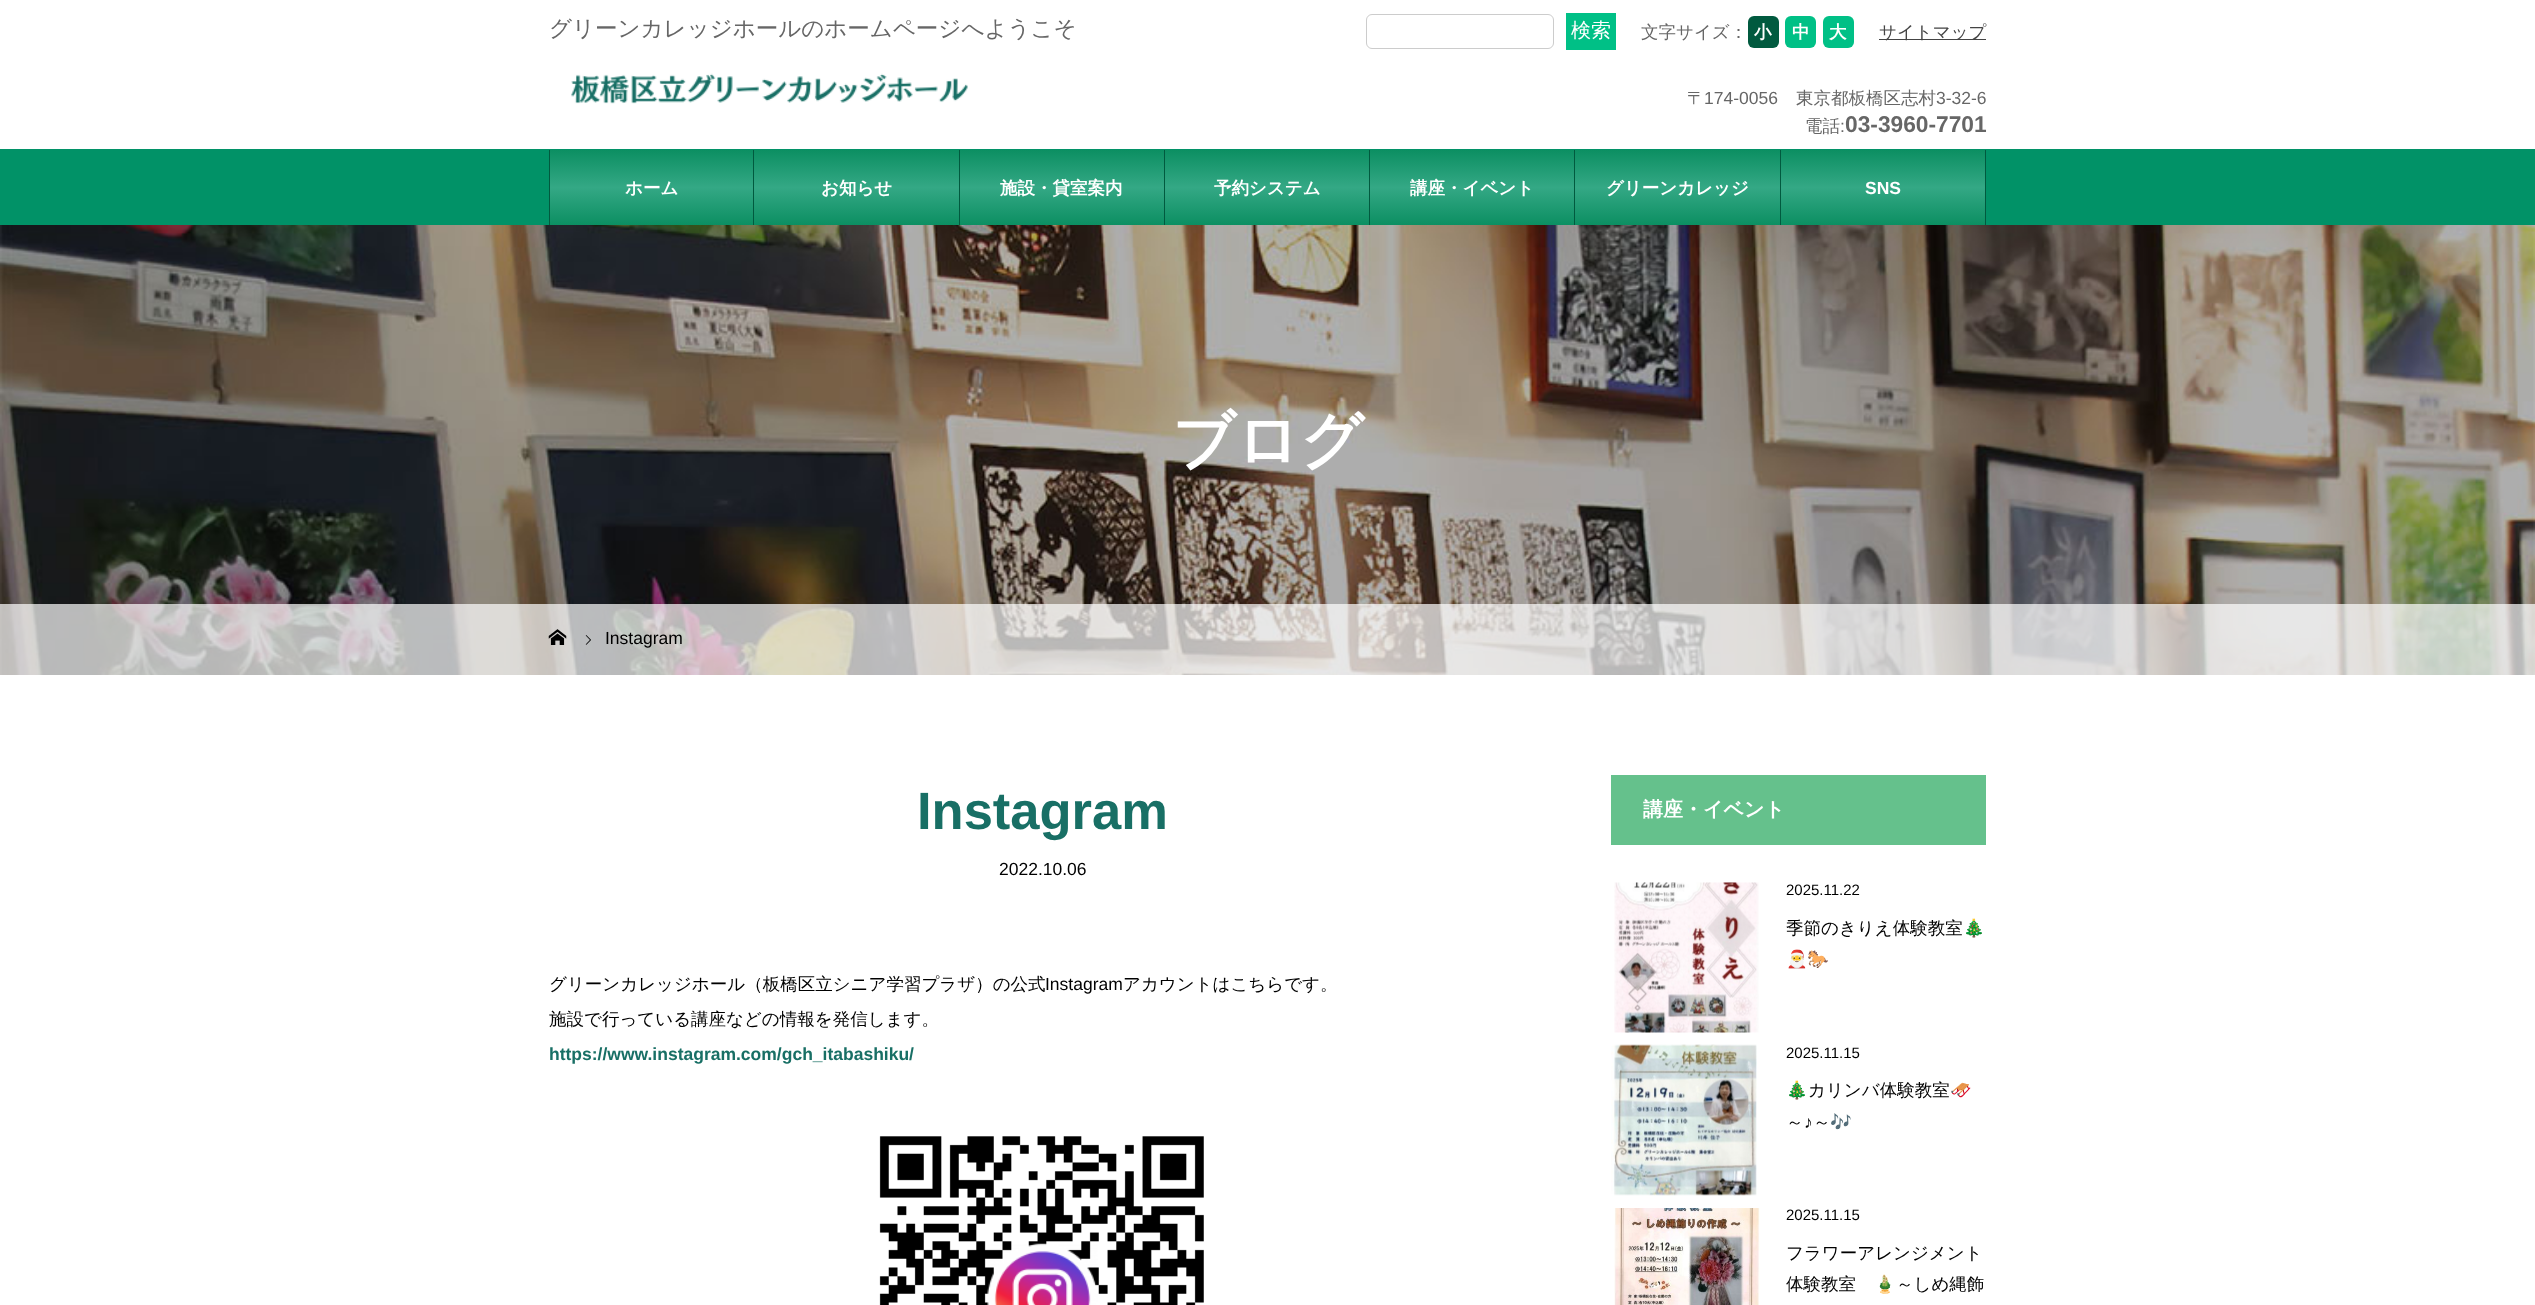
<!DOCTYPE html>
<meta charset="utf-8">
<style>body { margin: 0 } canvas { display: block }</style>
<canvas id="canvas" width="2535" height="1305"></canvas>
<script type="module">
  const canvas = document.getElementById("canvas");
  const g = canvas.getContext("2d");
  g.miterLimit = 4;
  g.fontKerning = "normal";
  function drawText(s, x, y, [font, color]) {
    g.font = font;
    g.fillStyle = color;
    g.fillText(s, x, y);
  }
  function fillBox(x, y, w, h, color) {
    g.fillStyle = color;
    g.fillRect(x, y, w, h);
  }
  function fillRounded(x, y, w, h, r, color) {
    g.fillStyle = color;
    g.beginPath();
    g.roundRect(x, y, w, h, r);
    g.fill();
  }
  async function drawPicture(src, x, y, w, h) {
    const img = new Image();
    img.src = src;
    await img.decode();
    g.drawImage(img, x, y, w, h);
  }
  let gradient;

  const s1 = ["500 22.5px WenQuanYi Zen Hei", "#666666"];
  const s2 = ["500 20px WenQuanYi Zen Hei", "#FFFFFF"];
  const s3 = ["500 17.5px WenQuanYi Zen Hei", "#666666"];
  const s4 = ["bold 17.5px WenQuanYi Zen Hei", "#FFFFFF"];
  const s5 = ["500 17.5px WenQuanYi Zen Hei", "#444444"];
  const s6 = ["17.5px Liberation Sans", "#666666"];
  const s7 = ["bold 22.75px Liberation Sans", "#666666"];
  const s8 = ["bold 17.5px Liberation Sans", "#FFFFFF"];
  const s9 = ["bold 62.5px WenQuanYi Zen Hei", "#FFFFFF"];
  const s10 = ["17.5px Liberation Sans", "#000000"];
  const s11 = ["bold 52.5px Liberation Sans", "#186F65"];
  const s12 = ["500 17.5px WenQuanYi Zen Hei", "#000000"];
  const s13 = ["bold 17.5px Liberation Sans", "#186F65"];
  const s14 = ["bold 20px WenQuanYi Zen Hei", "#FFFFFF"];
  const s15 = ["15px Liberation Sans", "#000000"];
  const s16 = ["17.5px Noto Color Emoji", "#000000"];

  fillBox(0, 0, 2535, 1305, "#FFFFFF");
  drawText("グリーンカレッジホールのホームページへようこそ", 549, 36, s1);
  g.beginPath();
  g.roundRect(1366.5, 14.5, 187, 34, 5.5);
  g.strokeStyle = "#CCCCCC";
  g.stroke();
  fillBox(1566, 13, 50, 37, "#00C086");
  drawText("検索", 1571, 37, s2);
  drawText("文字サイズ：", 1641, 38, s3);
  fillRounded(1748, 16, 31, 32, 6, "#015A3F");
  drawText("小", 1754, 38, s4);
  fillRounded(1785, 16, 31, 32, 6, "#00C086");
  drawText("中", 1792, 38, s4);
  fillRounded(1823, 16, 31, 32, 6, "#00C086");
  drawText("大", 1829, 38, s4);
  fillBox(1879, 39, 107, 1, "#444444");
  drawText("サイトマップ", 1879, 38, s5);
  drawText("〒", 1687, 104, s3);
  drawText("174-0056", 1704, 104, s6);
  drawText("東京都板橋区志村", 1796, 104, s3);
  drawText("3-32-6", 1936, 104, s6);
  drawText("電話", 1805, 132, s3);
  drawText(":", 1840, 132, s6);
  drawText("03-3960-7701", 1845, 132, s7);
  await drawPicture("pic1.png", 571, 73, 397, 31);
  fillBox(0, 149, 2535, 76, "#019267");
  gradient = g.createLinearGradient(651, 150, 651, 225);
  gradient.addColorStop(0, "#0C8F62");
  gradient.addColorStop(0.5, "#34A885");
  gradient.addColorStop(1, "#0C8F62");
  g.fillStyle = gradient;
  g.fillRect(550, 150, 203, 75);
  fillBox(753, 150, 1, 75, "#015A3F");
  fillBox(549, 150, 1, 75, "#015A3F");
  drawText("ホーム", 625, 194, s4);
  gradient = g.createLinearGradient(856, 150, 856, 225);
  gradient.addColorStop(0, "#0C8F62");
  gradient.addColorStop(0.5, "#34A885");
  gradient.addColorStop(1, "#0C8F62");
  g.fillStyle = gradient;
  g.fillRect(754, 150, 205, 75);
  fillBox(959, 150, 1, 75, "#015A3F");
  drawText("お知らせ", 821, 194, s4);
  gradient = g.createLinearGradient(1062, 150, 1062, 225);
  gradient.addColorStop(0, "#0C8F62");
  gradient.addColorStop(0.5, "#34A885");
  gradient.addColorStop(1, "#0C8F62");
  g.fillStyle = gradient;
  g.fillRect(960, 150, 204, 75);
  fillBox(1164, 150, 1, 75, "#015A3F");
  drawText("施設・貸室案内", 1000, 194, s4);
  gradient = g.createLinearGradient(1267, 150, 1267, 225);
  gradient.addColorStop(0, "#0C8F62");
  gradient.addColorStop(0.5, "#34A885");
  gradient.addColorStop(1, "#0C8F62");
  g.fillStyle = gradient;
  g.fillRect(1165, 150, 204, 75);
  fillBox(1369, 150, 1, 75, "#015A3F");
  drawText("予約システム", 1214, 194, s4);
  gradient = g.createLinearGradient(1472, 150, 1472, 225);
  gradient.addColorStop(0, "#0C8F62");
  gradient.addColorStop(0.5, "#34A885");
  gradient.addColorStop(1, "#0C8F62");
  g.fillStyle = gradient;
  g.fillRect(1370, 150, 204, 75);
  fillBox(1574, 150, 1, 75, "#015A3F");
  drawText("講座・イベント", 1410, 194, s4);
  gradient = g.createLinearGradient(1678, 150, 1678, 225);
  gradient.addColorStop(0, "#0C8F62");
  gradient.addColorStop(0.5, "#34A885");
  gradient.addColorStop(1, "#0C8F62");
  g.fillStyle = gradient;
  g.fillRect(1575, 150, 205, 75);
  fillBox(1780, 150, 1, 75, "#015A3F");
  drawText("グリーンカレッジ", 1606, 194, s4);
  gradient = g.createLinearGradient(1883, 150, 1883, 225);
  gradient.addColorStop(0, "#0C8F62");
  gradient.addColorStop(0.5, "#34A885");
  gradient.addColorStop(1, "#0C8F62");
  g.fillStyle = gradient;
  g.fillRect(1781, 150, 204, 75);
  fillBox(1985, 150, 1, 75, "#015A3F");
  drawText("SNS", 1865, 194, s8);
  await drawPicture("pic2.png", 0, 225, 2535, 450);
  drawText("ブログ", 1172, 462, s9);
  fillBox(0, 604, 2535, 71, "rgba(255, 255, 255, 0.7)");
  await drawPicture("pic3.png", 548, 629, 19, 16);
  await drawPicture("pic4.png", 585, 635, 6, 10);
  drawText("Instagram", 605, 644, s10);
  drawText("Instagram", 917, 829, s11);
  drawText("2022.10.06", 999, 875, s10);
  drawText("グリーンカレッジホール（板橋区立シニア学習プラザ）の公式", 549, 990, s12);
  drawText("Instagram", 1045, 990, s10);
  drawText("アカウントはこちらです。", 1123, 990, s12);
  drawText("施設で行っている講座などの情報を発信します。", 549, 1025, s12);
  drawText("https://www.instagram.com/gch_itabashiku/", 549, 1060, s13);
  await drawPicture("pic5.png", 879, 1136, 325, 169);
  fillBox(1611, 775, 375, 70, "#65C18C");
  drawText("講座・イベント", 1643, 816, s14);
  await drawPicture("pic6.png", 1614, 882, 145, 151);
  drawText("2025.11.22", 1786, 895, s15);
  drawText("季節のきりえ体験教室", 1786, 934, s12);
  drawText("🎄", 1963, 934, s16);
  drawText("🎅🐎", 1786, 965, s16);
  await drawPicture("pic7.png", 1611, 1044, 146, 152);
  drawText("2025.11.15", 1786, 1058, s15);
  drawText("🎄", 1786, 1096, s16);
  drawText("カリンバ体験教室", 1808, 1096, s12);
  drawText("🛷", 1950, 1096, s16);
  drawText("～", 1786, 1128, s12);
  drawText("♪", 1804, 1128, s10);
  drawText("～", 1813, 1128, s12);
  drawText("🎶", 1830, 1128, s16);
  await drawPicture("pic8.png", 1614, 1208, 146, 97);
  drawText("2025.11.15", 1786, 1220, s15);
  drawText("フラワーアレンジメント", 1786, 1259, s12);
  drawText("体験教室", 1786, 1290, s12);
  drawText("🎍", 1874, 1290, s16);
  drawText("～しめ縄飾", 1896, 1290, s12);
</script>
